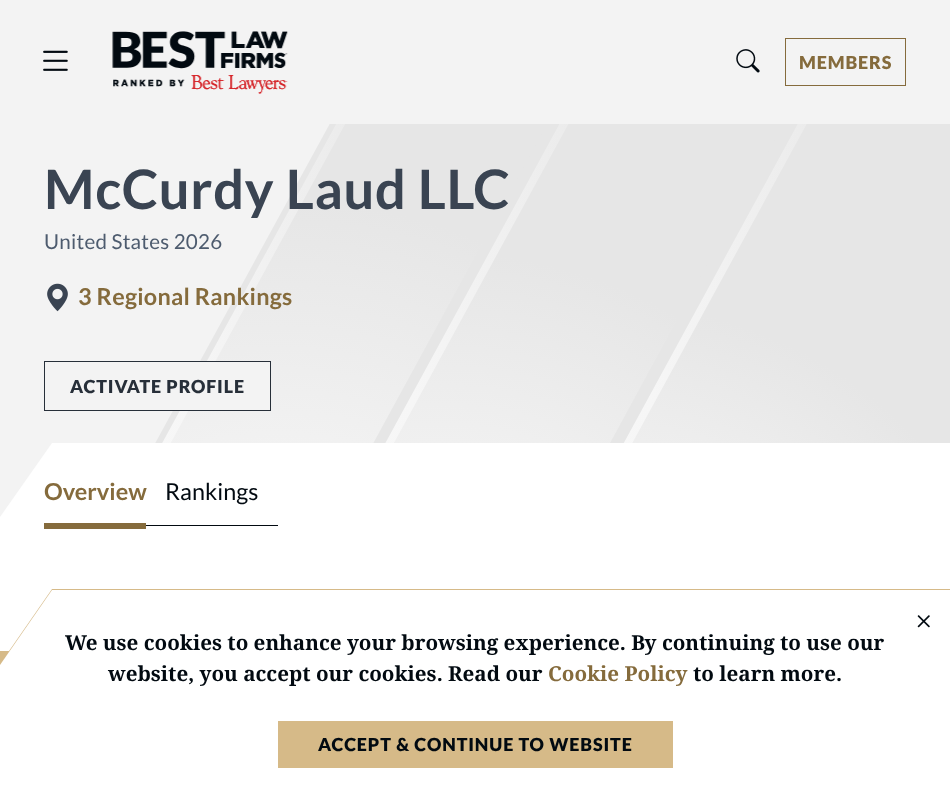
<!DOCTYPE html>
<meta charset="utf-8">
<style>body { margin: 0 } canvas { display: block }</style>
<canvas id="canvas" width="950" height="798"></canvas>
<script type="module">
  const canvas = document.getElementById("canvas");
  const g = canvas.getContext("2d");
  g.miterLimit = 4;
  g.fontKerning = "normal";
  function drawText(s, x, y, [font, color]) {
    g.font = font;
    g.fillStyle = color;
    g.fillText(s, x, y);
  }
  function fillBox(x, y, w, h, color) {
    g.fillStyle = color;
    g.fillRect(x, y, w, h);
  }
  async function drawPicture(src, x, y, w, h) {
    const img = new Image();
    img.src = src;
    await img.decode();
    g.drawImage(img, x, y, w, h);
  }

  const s1 = ["900 17.9px Lato", "#856B3C"];
  const s2 = ["bold 54.25px Lato", "#3A4452"];
  const s3 = ["20.6px Lato", "#4D5B6E"];
  const s4 = ["bold 23.4px Lato", "#856B3C"];
  const s5 = ["900 17.9px Lato", "#272F39"];
  const s6 = ["23.4px Lato", "#020A11"];
  const s7 = ["bold 20.6px Noto Serif", "#020A11"];
  const s8 = ["bold 20.6px Noto Serif", "#856B3C"];
  const s9 = ["900 17.9px Lato", "#020A11"];

  fillBox(0, 0, 950, 798, "#F3F3F3");
  await drawPicture("pic1.png", 43, 50, 25, 21);
  await drawPicture("pic2.png", 112, 31, 176, 63);
  await drawPicture("pic3.png", 736, 49, 24, 24);
  g.strokeStyle = "#856B3C";
  g.strokeRect(785.5, 38.5, 120, 47);
  g.letterSpacing = "0.9px";
  drawText("MEMBERS", 799, 69, s1);
  await drawPicture("pic4.png", 155, 124, 795, 319);
  g.letterSpacing = "0.7px";
  drawText("McCurdy Laud LLC", 44, 209, s2);
  g.letterSpacing = "0.25px";
  drawText("United States 2026", 44, 249, s3);
  await drawPicture("pic5.png", 47, 283, 21, 29);
  drawText("3 Regional Rankings", 78, 305, s4);
  fillBox(173, 362, 97, 48, "#F3F3F3");
  g.strokeStyle = "#272F39";
  g.strokeRect(44.5, 361.5, 226, 49);
  g.letterSpacing = "0.9px";
  drawText("ACTIVATE PROFILE", 70, 393, s5);
  g.fillStyle = "#FFFFFF";
  g.beginPath();
  g.moveTo(0, 517);
  g.lineTo(0, 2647);
  g.lineTo(950, 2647);
  g.lineTo(950, 443);
  g.lineTo(52, 443);
  g.closePath();
  g.fill();
  g.letterSpacing = "0px";
  drawText("Overview", 44, 500, s4);
  fillBox(44, 523, 102, 6, "#856B3C");
  fillBox(146, 525, 132, 1, "#020A11");
  drawText("Rankings", 165, 500, s6);
  fillBox(0, 651, 9, 13, "#D6BA88");
  g.beginPath();
  g.moveTo(0, 664);
  g.lineTo(0, 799);
  g.lineTo(950, 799);
  g.lineTo(950, 589);
  g.lineTo(52, 589);
  g.closePath();
  g.fill();
  g.fillStyle = "#FFFFFF";
  g.beginPath();
  g.moveTo(0, 665);
  g.lineTo(0, 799);
  g.lineTo(950, 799);
  g.lineTo(950, 590);
  g.lineTo(52, 590);
  g.closePath();
  g.fill();
  await drawPicture("pic6.png", 917, 615, 13, 13);
  drawText("We use cookies to enhance your browsing experience. By continuing to use our", 65, 650, s7);
  drawText("website, you accept our cookies. Read our", 108, 681, s7);
  drawText("Cookie Policy", 548, 681, s8);
  drawText("to learn more.", 693, 681, s7);
  fillBox(278, 721, 395, 47, "#D6BA88");
  g.letterSpacing = "0.9px";
  drawText("ACCEPT & CONTINUE TO WEBSITE", 318, 751, s9);
</script>
